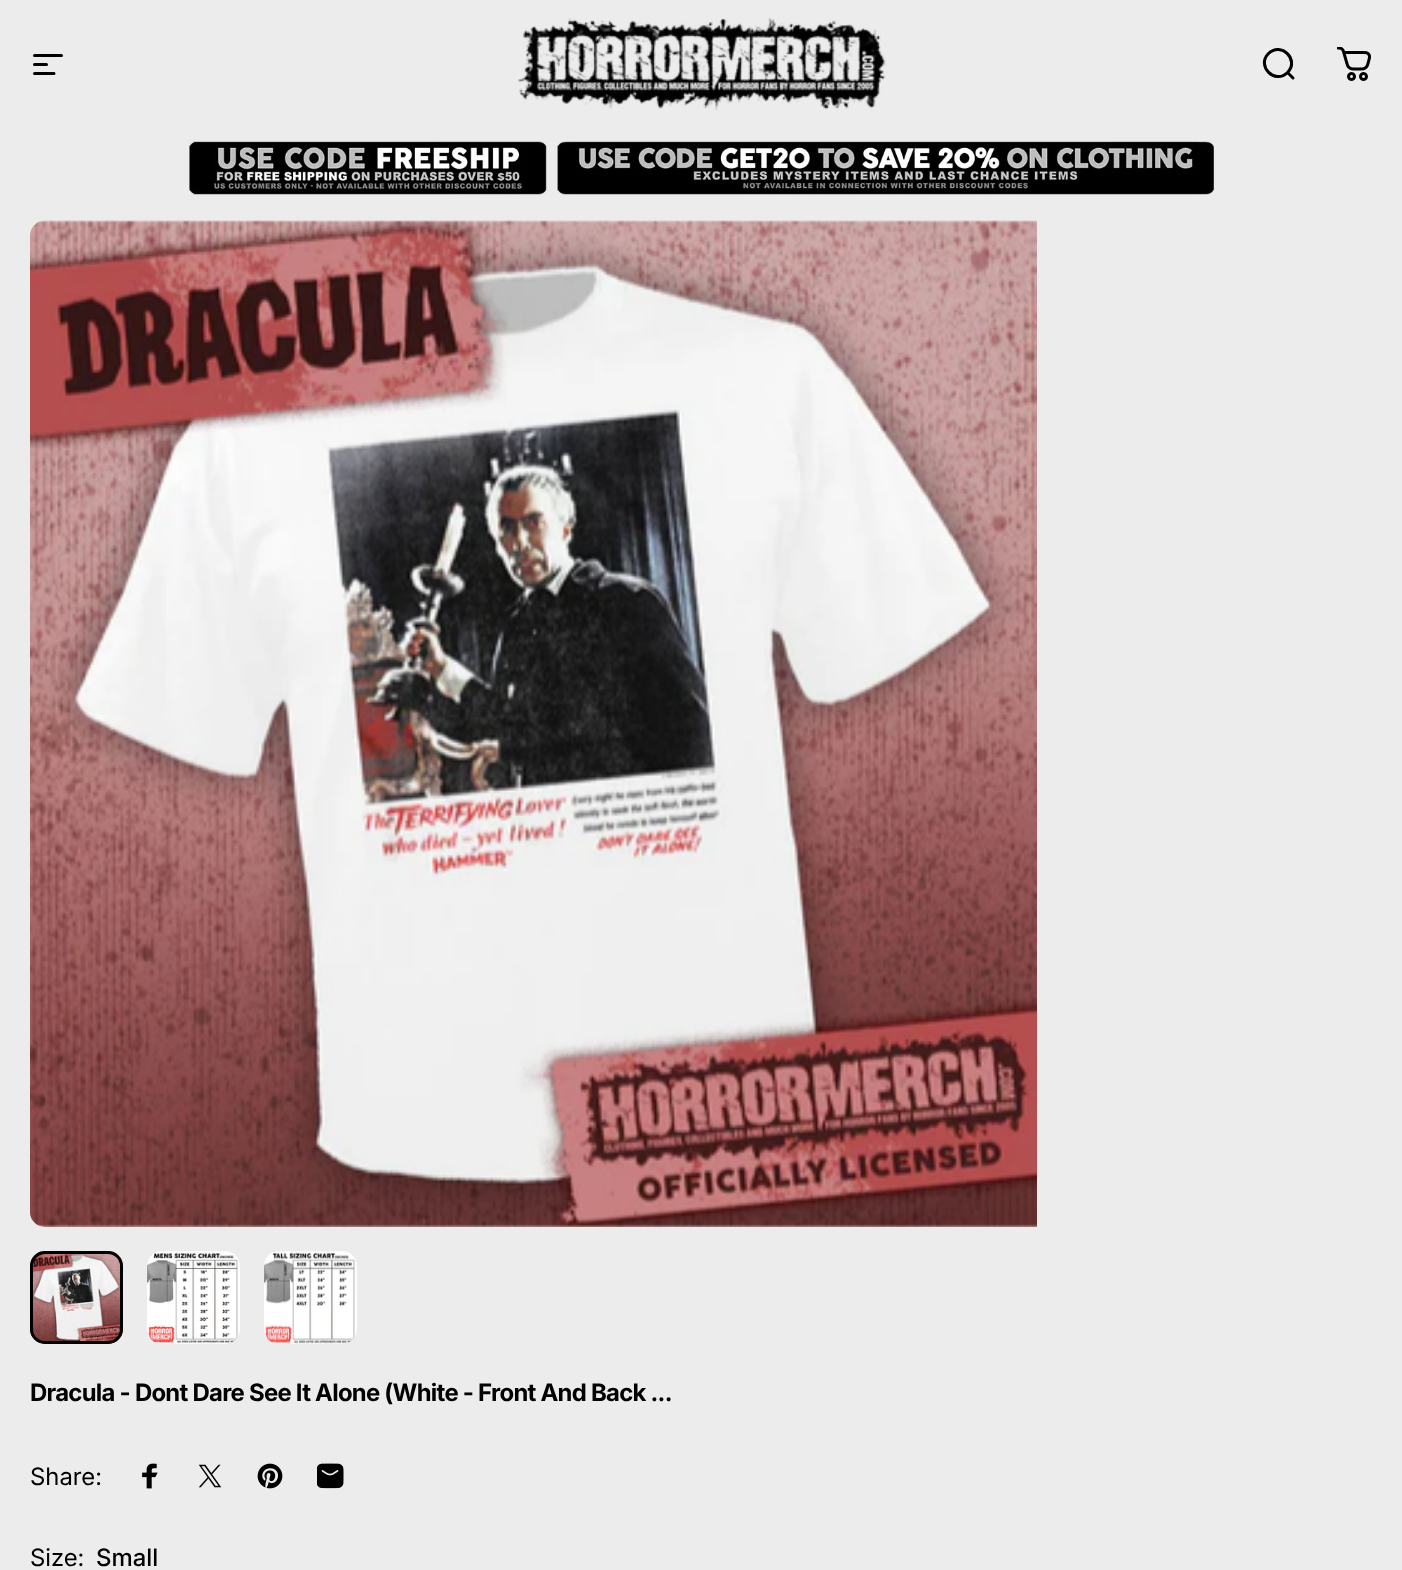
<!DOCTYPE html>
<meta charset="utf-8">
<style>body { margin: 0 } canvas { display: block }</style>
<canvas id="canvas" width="1402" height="1570"></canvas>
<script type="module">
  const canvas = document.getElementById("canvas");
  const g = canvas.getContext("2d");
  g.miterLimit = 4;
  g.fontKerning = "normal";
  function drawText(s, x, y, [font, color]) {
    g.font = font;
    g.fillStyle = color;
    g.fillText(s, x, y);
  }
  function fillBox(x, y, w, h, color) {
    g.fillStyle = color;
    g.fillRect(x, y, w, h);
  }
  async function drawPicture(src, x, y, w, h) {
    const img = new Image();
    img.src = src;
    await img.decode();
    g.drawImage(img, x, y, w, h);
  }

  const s1 = ["bold 24px Inter", "#000000"];
  const s2 = ["24px Inter", "#000000"];
  const s3 = ["500 24px Inter", "#000000"];

  fillBox(0, 0, 1402, 1570, "#ECECEC");
  g.beginPath();
  g.moveTo(34.5, 55.5);
  g.lineTo(61.5, 55.5);
  g.moveTo(34.5, 64.5);
  g.lineTo(46.5, 64.5);
  g.moveTo(34.5, 73.5);
  g.lineTo(54, 73.5);
  g.strokeStyle = "#000000";
  g.lineWidth = 3;
  g.lineCap = "round";
  g.stroke();
  await drawPicture("pic1.png", 517, 18, 370, 93);
  g.beginPath();
  g.moveTo(1293, 78);
  g.lineTo(1287.5, 72.5);
  g.moveTo(1287.5, 72.5);
  g.bezierCurveTo(1300, 60, 1281, 41, 1268.5, 53.5);
  g.bezierCurveTo(1256, 66, 1275, 85, 1287.5, 72.5);
  g.closePath();
  g.stroke();
  await drawPicture("pic2.png", 1337, 47, 34, 34);
  await drawPicture("pic3.png", 185, 141, 1031, 54);
  await drawPicture("pic4.png", 30, 220, 1007, 1007);
  await drawPicture("pic5.png", 30, 1251, 93, 93);
  g.beginPath();
  g.roundRect(31.5, 1252.5, 90, 90, 13.5);
  g.stroke();
  await drawPicture("pic6.png", 147, 1251, 93, 93);
  await drawPicture("pic7.png", 264, 1251, 93, 93);
  g.letterSpacing = "-0.72px";
  drawText("Dracula - Dont Dare See It Alone (White - Front And Back ...", 30, 1401, s1);
  g.letterSpacing = "0px";
  drawText("Share:", 30, 1485, s2);
  await drawPicture("pic8.png", 142, 1463, 16, 26);
  await drawPicture("pic9.png", 198, 1464, 24, 24);
  await drawPicture("pic10.png", 257, 1463, 26, 26);
  await drawPicture("pic11.png", 317, 1463, 27, 26);
  drawText("Size:", 30, 1566, s2);
  drawText("Small", 96, 1566, s3);
</script>
